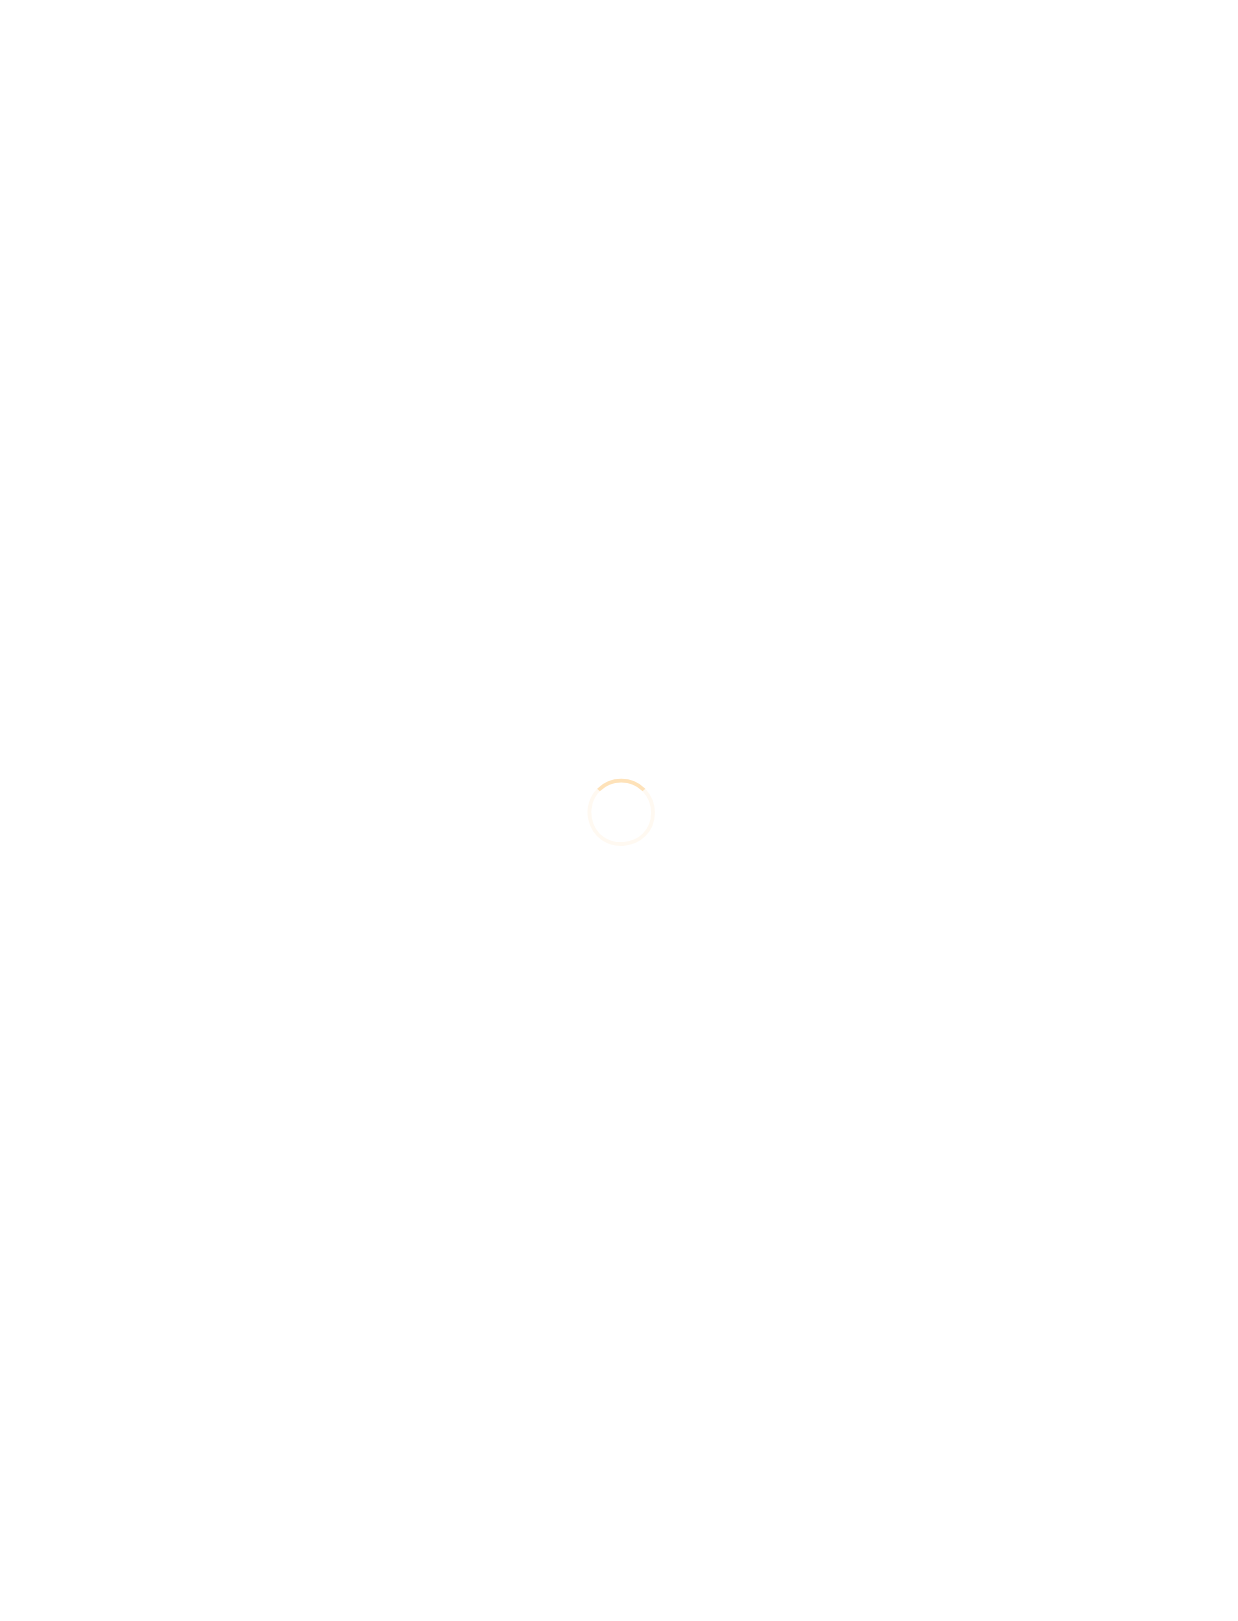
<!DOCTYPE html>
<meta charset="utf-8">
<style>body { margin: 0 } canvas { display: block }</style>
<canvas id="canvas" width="1238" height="1621"></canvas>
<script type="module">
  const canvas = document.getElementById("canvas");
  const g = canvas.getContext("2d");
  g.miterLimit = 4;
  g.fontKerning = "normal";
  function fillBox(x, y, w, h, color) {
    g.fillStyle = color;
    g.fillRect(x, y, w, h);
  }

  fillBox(0, 0, 1238, 1621, "#FFFFFF");
  g.beginPath();
  g.moveTo(598.5, 790);
  g.bezierCurveTo(611, 777.5, 631.5, 777.5, 644, 790);
  g.strokeStyle = "#FEE2B9";
  g.lineWidth = 3.8;
  g.stroke();
  g.beginPath();
  g.moveTo(644, 790);
  g.bezierCurveTo(649.5, 796, 653, 804, 653, 812.5);
  g.bezierCurveTo(653, 850.5, 597.5, 856, 590, 818.5);
  g.bezierCurveTo(588, 808.5, 591, 797.5, 598.5, 790);
  g.strokeStyle = "rgba(254, 226, 185, 0.2)";
  g.stroke();
</script>
